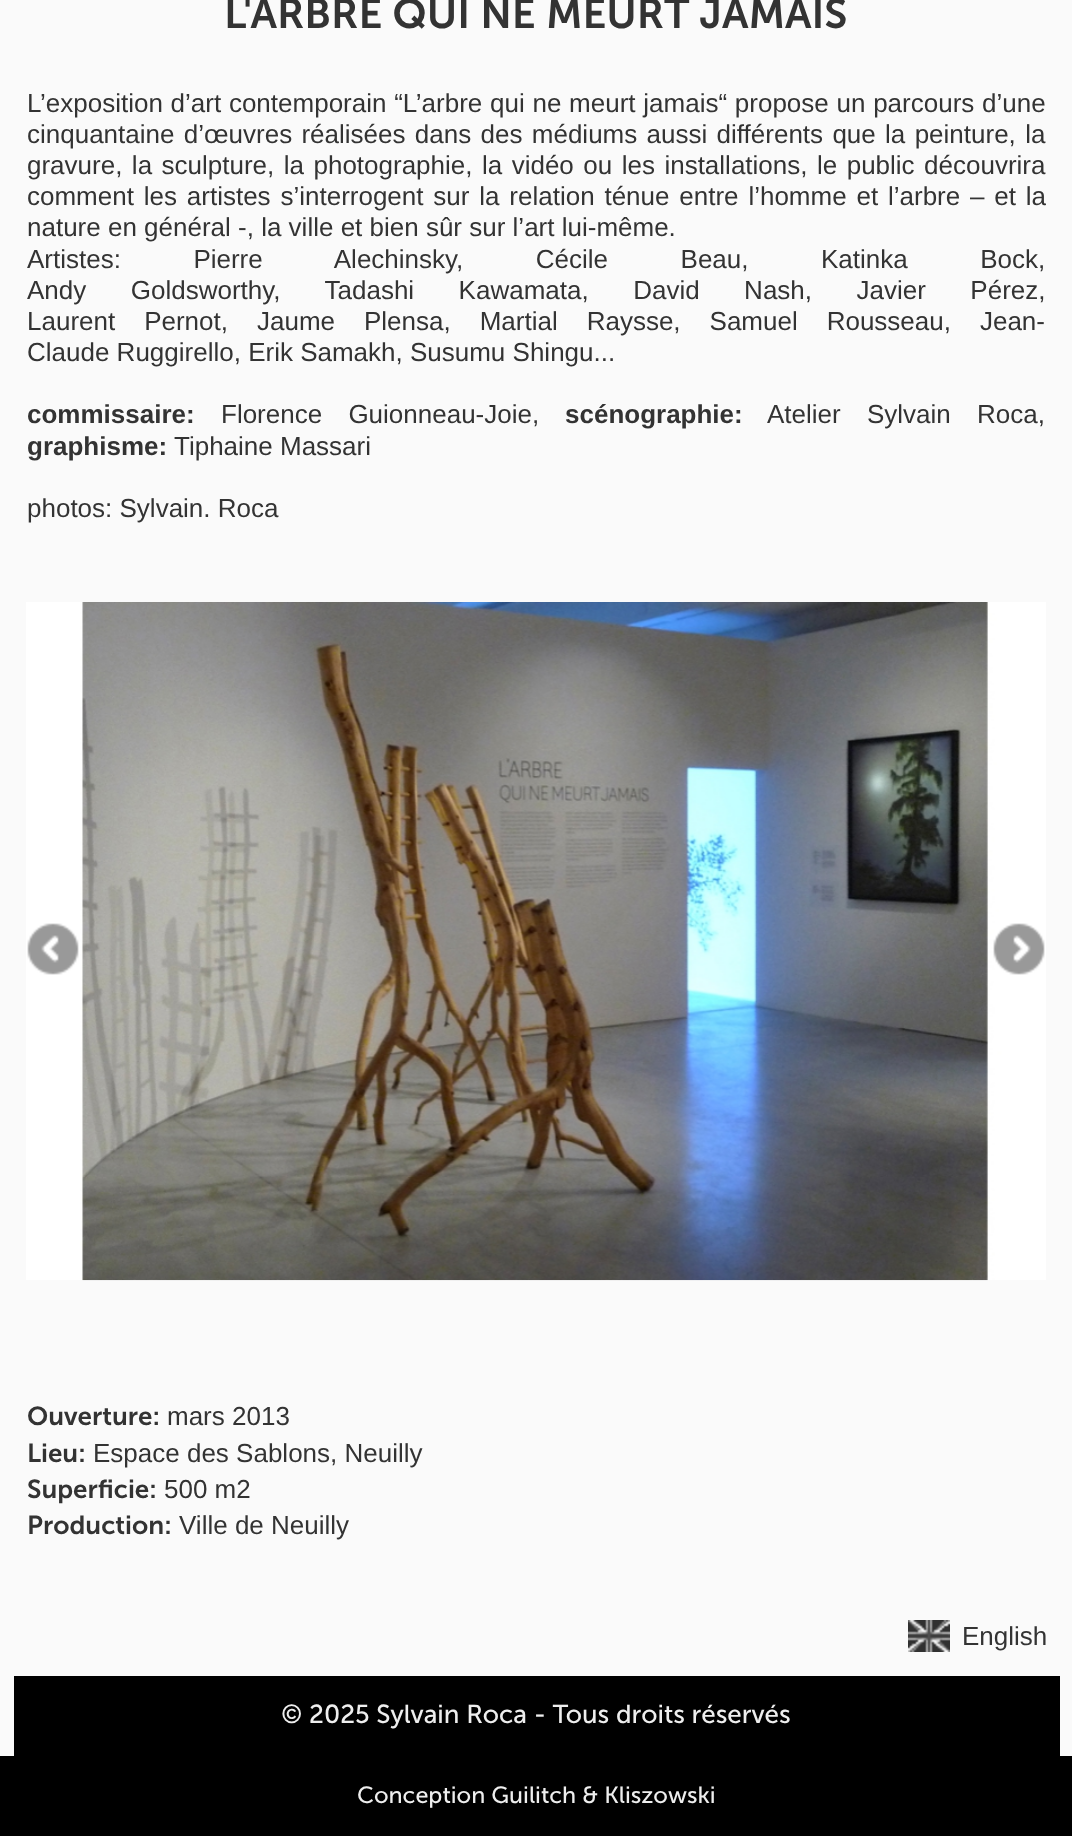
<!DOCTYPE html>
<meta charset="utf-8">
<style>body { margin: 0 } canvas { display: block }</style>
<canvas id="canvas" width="1072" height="1836"></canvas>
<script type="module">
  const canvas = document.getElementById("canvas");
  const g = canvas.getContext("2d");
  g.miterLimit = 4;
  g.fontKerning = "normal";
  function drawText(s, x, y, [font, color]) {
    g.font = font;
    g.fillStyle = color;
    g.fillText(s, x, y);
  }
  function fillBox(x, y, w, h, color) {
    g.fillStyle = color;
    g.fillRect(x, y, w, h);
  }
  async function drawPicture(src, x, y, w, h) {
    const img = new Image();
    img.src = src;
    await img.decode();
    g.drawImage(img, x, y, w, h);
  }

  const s1 = ["600 41.6px Museo Sans", "#333333"];
  const s2 = ["26px Liberation Sans", "#333333"];
  const s3 = ["bold 26px Liberation Sans", "#333333"];
  const s4 = ["600 26px Museo Sans", "#333333"];
  const s5 = ["26px Museo Sans", "#EEEEEE"];
  const s6 = ["23.4px Museo Sans", "#EEEEEE"];

  fillBox(0, 0, 1072, 1836, "#000000");
  fillBox(0, 0, 1072, 1756, "#FAFAFA");
  drawText("L'ARBRE QUI NE MEURT JAMAIS", 224, 28, s1);
  g.wordSpacing = "0.5px";
  drawText("L’exposition d’art contemporain “L’arbre qui ne meurt jamais“ propose un parcours d’une", 27, 112, s2);
  g.wordSpacing = "2.1px";
  drawText("cinquantaine d’œuvres réalisées dans des médiums aussi différents que la peinture, la", 27, 143, s2);
  g.wordSpacing = "2.25px";
  drawText("gravure, la sculpture, la photographie, la vidéo ou les installations, le public découvrira", 27, 174, s2);
  g.wordSpacing = "2.6px";
  drawText("comment les artistes s’interrogent sur la relation ténue entre l’homme et l’arbre – et la", 27, 205, s2);
  g.wordSpacing = "0px";
  drawText("nature en général -, la ville et bien sûr sur l’art lui-même.", 27, 236, s2);
  g.wordSpacing = "65.25px";
  drawText("Artistes: Pierre Alechinsky, Cécile Beau, Katinka Bock,", 27, 268, s2);
  g.wordSpacing = "37.25px";
  drawText("Andy Goldsworthy, Tadashi Kawamata, David Nash, Javier Pérez,", 27, 299, s2);
  g.wordSpacing = "21.75px";
  drawText("Laurent Pernot, Jaume Plensa, Martial Raysse, Samuel Rousseau, Jean-", 27, 330, s2);
  g.wordSpacing = "0px";
  drawText("Claude Ruggirello, Erik Samakh, Susumu Shingu...", 27, 361, s2);
  drawText("commissaire:", 27, 423, s3);
  g.wordSpacing = "19px";
  drawText("Florence Guionneau-Joie,", 221, 423, s2);
  g.wordSpacing = "0px";
  drawText("scénographie:", 565, 423, s3);
  g.wordSpacing = "19px";
  drawText("Atelier Sylvain Roca,", 767, 423, s2);
  g.wordSpacing = "0px";
  drawText("graphisme:", 27, 455, s3);
  drawText("Tiphaine Massari", 174, 455, s2);
  drawText("photos: Sylvain. Roca", 27, 517, s2);
  await drawPicture("pic1.png", 26, 602, 1018, 679);
  fillBox(1044, 602, 2, 678, "#FFFFFF");
  await drawPicture("pic2.png", 27, 923, 52, 52);
  await drawPicture("pic3.png", 993, 923, 52, 52);
  drawText("Ouverture:", 27, 1425, s4);
  drawText("mars 2013", 167, 1425, s2);
  drawText("Lieu:", 27, 1462, s4);
  drawText("Espace des Sablons, Neuilly", 93, 1462, s2);
  drawText("Superficie:", 27, 1498, s4);
  drawText("500 m2", 164, 1498, s2);
  drawText("Production:", 27, 1534, s4);
  drawText("Ville de Neuilly", 179, 1534, s2);
  await drawPicture("pic4.png", 908, 1620, 42, 32);
  drawText("English", 962, 1645, s2);
  fillBox(14, 1676, 1046, 80, "#000000");
  drawText("© 2025 Sylvain Roca - Tous droits réservés", 281, 1723, s5);
  drawText("Conception Guilitch & Kliszowski", 357, 1803, s6);
</script>
